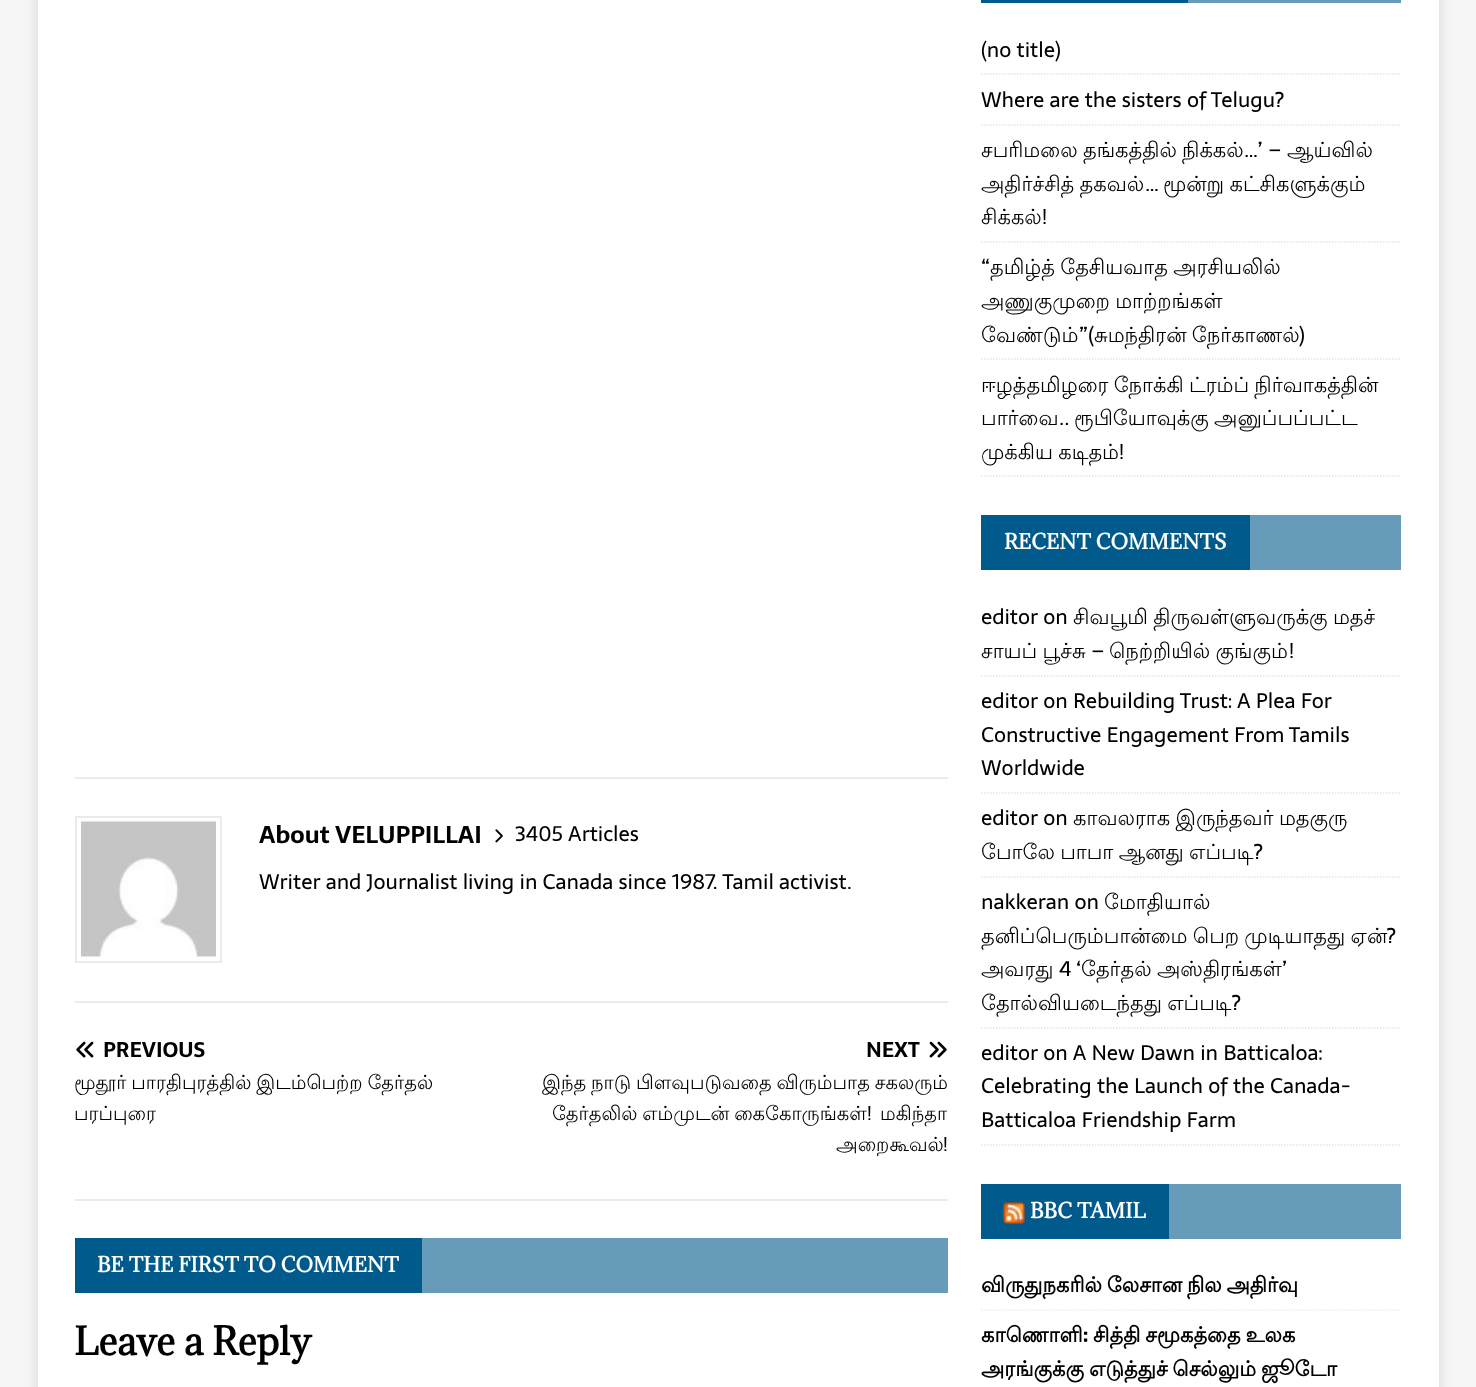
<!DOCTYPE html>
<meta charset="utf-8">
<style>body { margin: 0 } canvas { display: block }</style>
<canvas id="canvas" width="1476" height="1387"></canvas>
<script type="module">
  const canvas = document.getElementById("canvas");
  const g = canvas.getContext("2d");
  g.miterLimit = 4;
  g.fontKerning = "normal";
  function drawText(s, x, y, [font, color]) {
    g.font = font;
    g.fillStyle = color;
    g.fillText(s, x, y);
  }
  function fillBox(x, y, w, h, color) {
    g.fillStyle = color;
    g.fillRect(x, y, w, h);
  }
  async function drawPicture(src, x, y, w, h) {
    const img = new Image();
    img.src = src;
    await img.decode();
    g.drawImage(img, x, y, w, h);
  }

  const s1 = ["bold 24px Sarala", "#000000"];
  const s2 = ["21px Sarala", "#000000"];
  const s3 = ["bold 21px Sarala", "#000000"];
  const s4 = ["19.5px Lohit Tamil", "#000000"];
  const s5 = ["19.5px Sarala", "#000000"];
  const s6 = ["bold 19.5px Adamina", "#FFFFFF"];
  const s7 = ["bold 36px Adamina", "#000000"];
  const s8 = ["21px Lohit Tamil", "#000000"];
  const s9 = ["bold 21px Lohit Tamil", "#000000"];

  fillBox(0, 0, 1476, 1387, "#F7F7F7");
  g.fillStyle = "rgba(50, 50, 50, 0.17)";
  g.filter = "blur(7.5px)";
  g.beginPath();
  g.rect(38, -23, 1401, 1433);
  g.fill();
  g.filter = "none";
  fillBox(38, 0, 1401, 1387, "#FFFFFF");
  fillBox(75, 777, 873, 2, "#EBEBEB");
  fillBox(75, 1001, 873, 2, "#EBEBEB");
  g.strokeStyle = "#EBEBEB";
  g.lineWidth = 2;
  g.strokeRect(76, 817, 145, 145);
  await drawPicture("pic1.png", 81, 821, 135, 136);
  drawText("About VELUPPILLAI", 259, 843, s1);
  await drawPicture("pic2.png", 495, 829, 8, 14);
  drawText("3405 Articles", 515, 841, s2);
  drawText("Writer and Journalist living in Canada since 1987. Tamil activist.", 259, 889, s2);
  fillBox(75, 1199, 873, 2, "#EBEBEB");
  await drawPicture("pic3.png", 76, 1041, 18, 17);
  drawText("PREVIOUS", 103, 1057, s3);
  g.wordSpacing = "-1px";
  drawText("மூதூர் பாரதிபுரத்தில் இடம்பெற்ற தேர்தல்", 74, 1089, s4);
  g.wordSpacing = "0px";
  drawText("பரப்புரை", 74, 1120, s4);
  drawText("NEXT", 866, 1057, s3);
  await drawPicture("pic4.png", 929, 1041, 18, 17);
  g.wordSpacing = "-1px";
  drawText("இந்த நாடு பிளவுபடுவதை விரும்பாத சகலரும்", 542, 1089, s4);
  drawText("தேர்தலில் எம்முடன் கைகோருங்கள்", 552, 1120, s4);
  g.wordSpacing = "0px";
  drawText("!", 867, 1120, s5);
  drawText("மகிந்தா", 880, 1120, s4);
  drawText("அறைகூவல்", 836, 1151, s4);
  drawText("!", 943, 1151, s5);
  fillBox(422, 1238, 526, 55, "#669CBA");
  fillBox(75, 1238, 347, 55, "#005A8C");
  drawText("BE THE FIRST TO COMMENT", 97, 1272, s6);
  drawText("Leave a Reply", 74, 1355, s7);
  fillBox(1188, 0, 213, 3, "#669CBA");
  fillBox(981, 0, 207, 3, "#005A8C");
  g.beginPath();
  g.moveTo(981, 74);
  g.lineTo(1401, 74);
  g.strokeStyle = "#E5E5E5";
  g.lineWidth = 1.5;
  g.setLineDash([1.5, 1.5]);
  g.stroke();
  drawText("(no title)", 981, 57, s2);
  g.beginPath();
  g.moveTo(981, 125);
  g.lineTo(1401, 125);
  g.stroke();
  drawText("Where are the sisters of Telugu?", 981, 107, s2);
  g.beginPath();
  g.moveTo(981, 242);
  g.lineTo(1401, 242);
  g.stroke();
  drawText("சபரிமலை", 981, 157, s8);
  drawText("தங்கத்தில்", 1083, 157, s8);
  drawText("நிக்கல்", 1182, 157, s8);
  drawText("…’ –", 1244, 157, s2);
  drawText("ஆய்வில்", 1287, 157, s8);
  g.wordSpacing = "-1px";
  drawText("அதிர்ச்சித் தகவல்", 981, 191, s8);
  g.wordSpacing = "0px";
  drawText("…", 1145, 191, s2);
  g.wordSpacing = "-1px";
  drawText("மூன்று கட்சிகளுக்கும்", 1163, 191, s8);
  g.wordSpacing = "0px";
  drawText("சிக்கல்", 981, 224, s8);
  drawText("!", 1042, 224, s2);
  g.beginPath();
  g.moveTo(981, 359);
  g.lineTo(1401, 359);
  g.stroke();
  drawText("“", 981, 274, s2);
  g.wordSpacing = "-1px";
  drawText("தமிழ்த் தேசியவாத அரசியலில்", 990, 274, s8);
  drawText("அணுகுமுறை மாற்றங்கள்", 981, 308, s8);
  g.wordSpacing = "0px";
  drawText("வேண்டும்", 981, 342, s8);
  drawText("”(", 1079, 342, s2);
  g.wordSpacing = "-1px";
  drawText("சுமந்திரன் நேர்காணல்", 1094, 342, s8);
  g.wordSpacing = "0px";
  drawText(")", 1299, 342, s2);
  g.beginPath();
  g.moveTo(981, 476);
  g.lineTo(1401, 476);
  g.stroke();
  g.wordSpacing = "-1px";
  drawText("ஈழத்தமிழரை நோக்கி ட்ரம்ப் நிர்வாகத்தின்", 981, 392, s8);
  g.wordSpacing = "0px";
  drawText("பார்வை", 981, 425, s8);
  drawText("..", 1059, 425, s2);
  g.wordSpacing = "-1px";
  drawText("ரூபியோவுக்கு அனுப்பப்பட்ட", 1074, 425, s8);
  drawText("முக்கிய கடிதம்", 981, 459, s8);
  g.wordSpacing = "0px";
  drawText("!", 1119, 459, s2);
  fillBox(1250, 515, 151, 55, "#669CBA");
  fillBox(981, 515, 269, 55, "#005A8C");
  drawText("RECENT COMMENTS", 1004, 549, s6);
  g.beginPath();
  g.moveTo(981, 676);
  g.lineTo(1401, 676);
  g.stroke();
  drawText("editor on", 981, 624, s2);
  g.wordSpacing = "-1px";
  drawText("சிவபூமி திருவள்ளுவருக்கு மதச்", 1073, 624, s8);
  drawText("சாயப் பூச்சு", 981, 658, s8);
  g.wordSpacing = "0px";
  drawText("–", 1091, 658, s2);
  g.wordSpacing = "-1px";
  drawText("நெற்றியில் குங்கும்", 1109, 658, s8);
  g.wordSpacing = "0px";
  drawText("!", 1289, 658, s2);
  g.beginPath();
  g.moveTo(981, 793);
  g.lineTo(1401, 793);
  g.stroke();
  drawText("editor on Rebuilding Trust: A Plea For", 981, 708, s2);
  drawText("Constructive Engagement From Tamils", 981, 742, s2);
  drawText("Worldwide", 981, 775, s2);
  g.beginPath();
  g.moveTo(981, 877);
  g.lineTo(1401, 877);
  g.stroke();
  drawText("editor on", 981, 825, s2);
  g.wordSpacing = "-1px";
  drawText("காவலராக இருந்தவர் மதகுரு", 1073, 825, s8);
  drawText("போலே பாபா ஆனது எப்படி", 981, 859, s8);
  g.wordSpacing = "0px";
  drawText("?", 1254, 859, s2);
  g.beginPath();
  g.moveTo(981, 1028);
  g.lineTo(1401, 1028);
  g.stroke();
  drawText("nakkeran on", 981, 909, s2);
  drawText("மோதியால்", 1104, 909, s8);
  g.wordSpacing = "-1px";
  drawText("தனிப்பெரும்பான்மை பெற முடியாதது ஏன்", 981, 943, s8);
  g.wordSpacing = "0px";
  drawText("?", 1387, 943, s2);
  drawText("4 ‘", 1059, 976, s2);
  drawText("தேர்தல்", 1081, 976, s8);
  drawText("அஸ்திரங்கள்", 1157, 976, s8);
  drawText("’", 1282, 976, s2);
  drawText("அவரது", 981, 976, s8);
  g.wordSpacing = "-1px";
  drawText("தோல்வியடைந்தது எப்படி", 981, 1010, s8);
  g.wordSpacing = "0px";
  drawText("?", 1232, 1010, s2);
  g.beginPath();
  g.moveTo(981, 1145);
  g.lineTo(1401, 1145);
  g.stroke();
  drawText("editor on A New Dawn in Batticaloa:", 981, 1060, s2);
  drawText("Celebrating the Launch of the Canada-", 981, 1093, s2);
  drawText("Batticaloa Friendship Farm", 981, 1127, s2);
  fillBox(1169, 1184, 232, 55, "#669CBA");
  fillBox(981, 1184, 188, 55, "#005A8C");
  await drawPicture("pic5.png", 1003, 1202, 22, 22);
  drawText("BBC TAMIL", 1030, 1218, s6);
  g.beginPath();
  g.moveTo(981, 1310);
  g.lineTo(1401, 1310);
  g.strokeStyle = "#EBEBEB";
  g.stroke();
  g.wordSpacing = "-1.5px";
  drawText("விருதுநகரில் லேசான நில அதிர்வு", 981, 1292, s9);
  g.wordSpacing = "0px";
  drawText("காணொளி", 981, 1342, s9);
  drawText(":", 1083, 1342, s3);
  g.wordSpacing = "-1.5px";
  drawText("சித்தி சமூகத்தை உலக", 1093, 1342, s9);
  drawText("அரங்குக்கு எடுத்துச் செல்லும் ஜூடோ", 981, 1376, s9);
</script>
